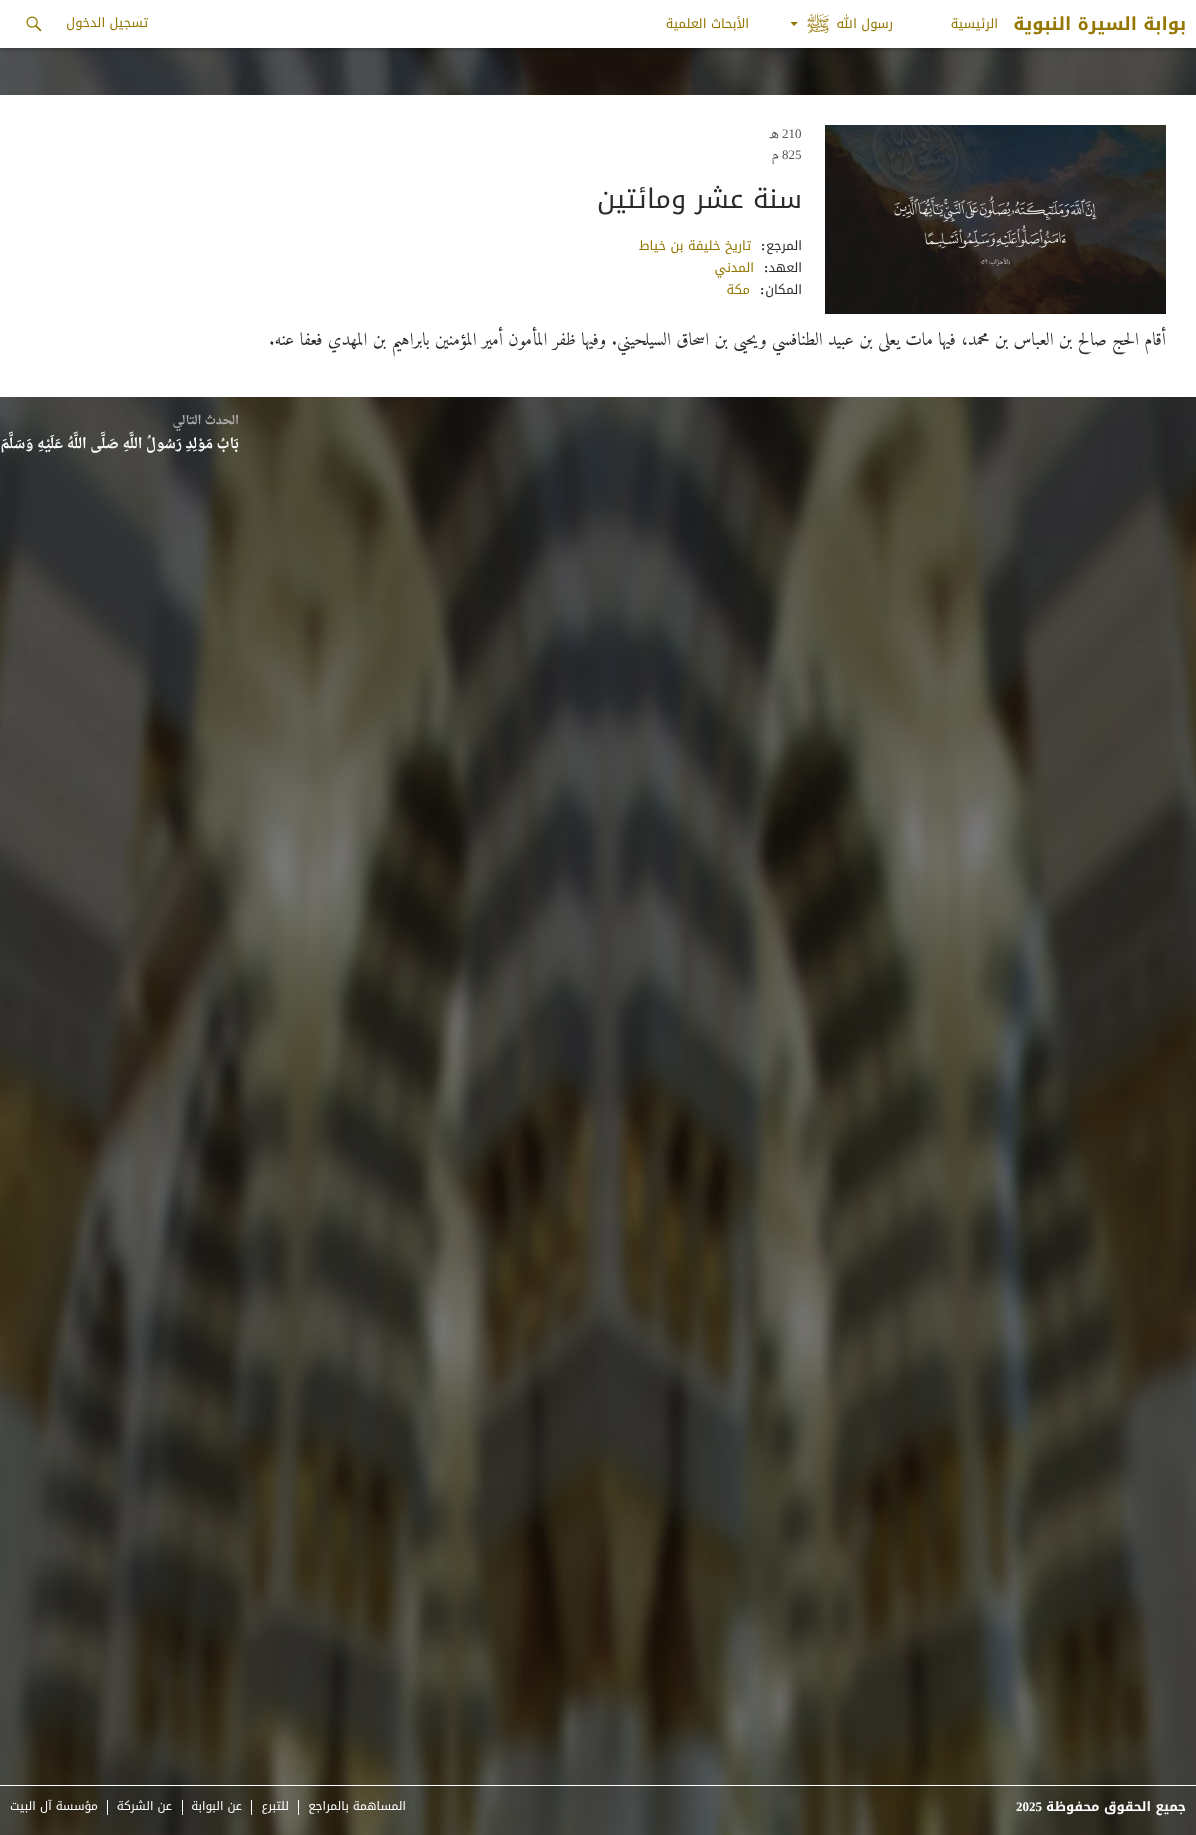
<!DOCTYPE html>
<meta charset="utf-8">
<style>body { margin: 0 } canvas { display: block }</style>
<canvas id="canvas" width="1196" height="1835"></canvas>
<script type="module">
  const canvas = document.getElementById("canvas");
  const g = canvas.getContext("2d");
  g.miterLimit = 4;
  g.fontKerning = "normal";
  function drawText(s, x, y, [font, color]) {
    g.font = font;
    g.fillStyle = color;
    g.fillText(s, x, y);
  }
  function fillBox(x, y, w, h, color) {
    g.fillStyle = color;
    g.fillRect(x, y, w, h);
  }
  async function drawPicture(src, x, y, w, h) {
    const img = new Image();
    img.src = src;
    await img.decode();
    g.drawImage(img, x, y, w, h);
  }

  const s1 = ["bold 18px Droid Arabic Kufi", "#947600"];
  const s2 = ["13px Droid Arabic Kufi", "#947600"];
  const s3 = ["13px Liberation Serif", "#535353"];
  const s4 = ["13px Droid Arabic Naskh", "#535353"];
  const s5 = ["27px Droid Arabic Kufi", "#2B2B2B"];
  const s6 = ["13px Droid Arabic Kufi", "#2B2B2B"];
  const s7 = ["bold 13px Liberation Serif", "#2B2B2B"];
  const s8 = ["18px Amiri", "#2B2B2B"];
  const s9 = ["bold 12px Droid Arabic Naskh", "#AFAFAF"];
  const s10 = ["bold 14px Droid Arabic Naskh", "#FFFFFF"];
  const s11 = ["bold 13px Droid Arabic Kufi", "#FFFFFF"];
  const s12 = ["bold 13px Liberation Serif", "#FFFFFF"];
  const s13 = ["12px Droid Arabic Kufi", "#FFFFFF"];

  fillBox(0, 0, 1196, 1835, "#FFFFFF");
  await drawPicture("pic4.png", 0, 48, 1196, 1787);
  g.fillStyle = "rgba(0, 0, 0, 0.3)";
  g.filter = "blur(2.5px)";
  g.beginPath();
  g.rect(0, 1, 1196, 48);
  g.fill();
  g.filter = "none";
  fillBox(0, 0, 1196, 48, "#FFFFFF");
  g.direction = "rtl";
  drawText("بوابة السيرة النبوية", 1186, 30, s1);
  drawText("الرئيسية", 998, 28, s2);
  drawText("رسول الله", 893, 28, s2);
  await drawPicture("pic1.png", 807, 14, 22, 20);
  g.beginPath();
  g.moveTo(790.5, 22);
  g.lineTo(794, 26);
  g.lineTo(798, 22);
  g.closePath();
  g.fill();
  drawText("الأبحاث العلمية", 749, 28, s2);
  drawText("تسجيل الدخول", 148, 27, s2);
  await drawPicture("pic2.png", 26, 16, 16, 16);
  fillBox(0, 95, 1196, 302, "#FFFFFF");
  await drawPicture("pic3.png", 825, 125, 341, 189);
  g.direction = "ltr";
  drawText("210", 782, 138, s3);
  g.direction = "rtl";
  drawText("هـ", 779, 138, s4);
  g.direction = "ltr";
  drawText("825", 782, 159, s3);
  g.direction = "rtl";
  drawText("م", 779, 159, s4);
  drawText("سنة عشر ومائتين", 802, 208, s5);
  drawText("المرجع", 802, 250, s6);
  g.direction = "ltr";
  drawText(":", 761, 250, s7);
  g.direction = "rtl";
  drawText("تاريخ خليفة بن خياط", 751, 250, s2);
  drawText("العهد", 802, 272, s6);
  g.direction = "ltr";
  drawText(":", 764, 272, s7);
  g.direction = "rtl";
  drawText("المدني", 754, 272, s2);
  drawText("المكان", 802, 294, s6);
  g.direction = "ltr";
  drawText(":", 760, 294, s7);
  g.direction = "rtl";
  drawText("مكة", 750, 294, s2);
  drawText("أقام الحج صالح بن العباس بن محمد، فيها مات يعلى بن عبيد الطنافسي ويحيى بن اسحاق السيلحيني. وفيها ظفر المأمون أمير المؤمنين بابراهيم بن المهدي فعفا عنه.", 1166, 345, s8);
  drawText("الحدث التالي", 239, 424, s9);
  drawText("بَابُ مَوْلِدِ رَسُولُ اللَّهِ صَلَّى اللَّهُ عَلَيْهِ وَسَلَّمَ", 239, 448, s10);
  fillBox(0, 1785, 1196, 1, "#FFFFFF");
  drawText("جميع الحقوق محفوظة", 1186, 1811, s11);
  g.direction = "ltr";
  drawText("2025", 1016, 1811, s12);
  g.direction = "rtl";
  drawText("المساهمة بالمراجع", 406, 1810, s13);
  fillBox(298, 1800, 1, 15, "#FFFFFF");
  drawText("للتبرع", 289, 1810, s13);
  fillBox(251, 1800, 1, 15, "#FFFFFF");
  drawText("عن البوابة", 242, 1810, s13);
  fillBox(182, 1800, 1, 15, "#FFFFFF");
  drawText("عن الشركة", 172, 1810, s13);
  fillBox(107, 1800, 1, 15, "#FFFFFF");
  drawText("مؤسسة آل البيت", 98, 1810, s13);
</script>
